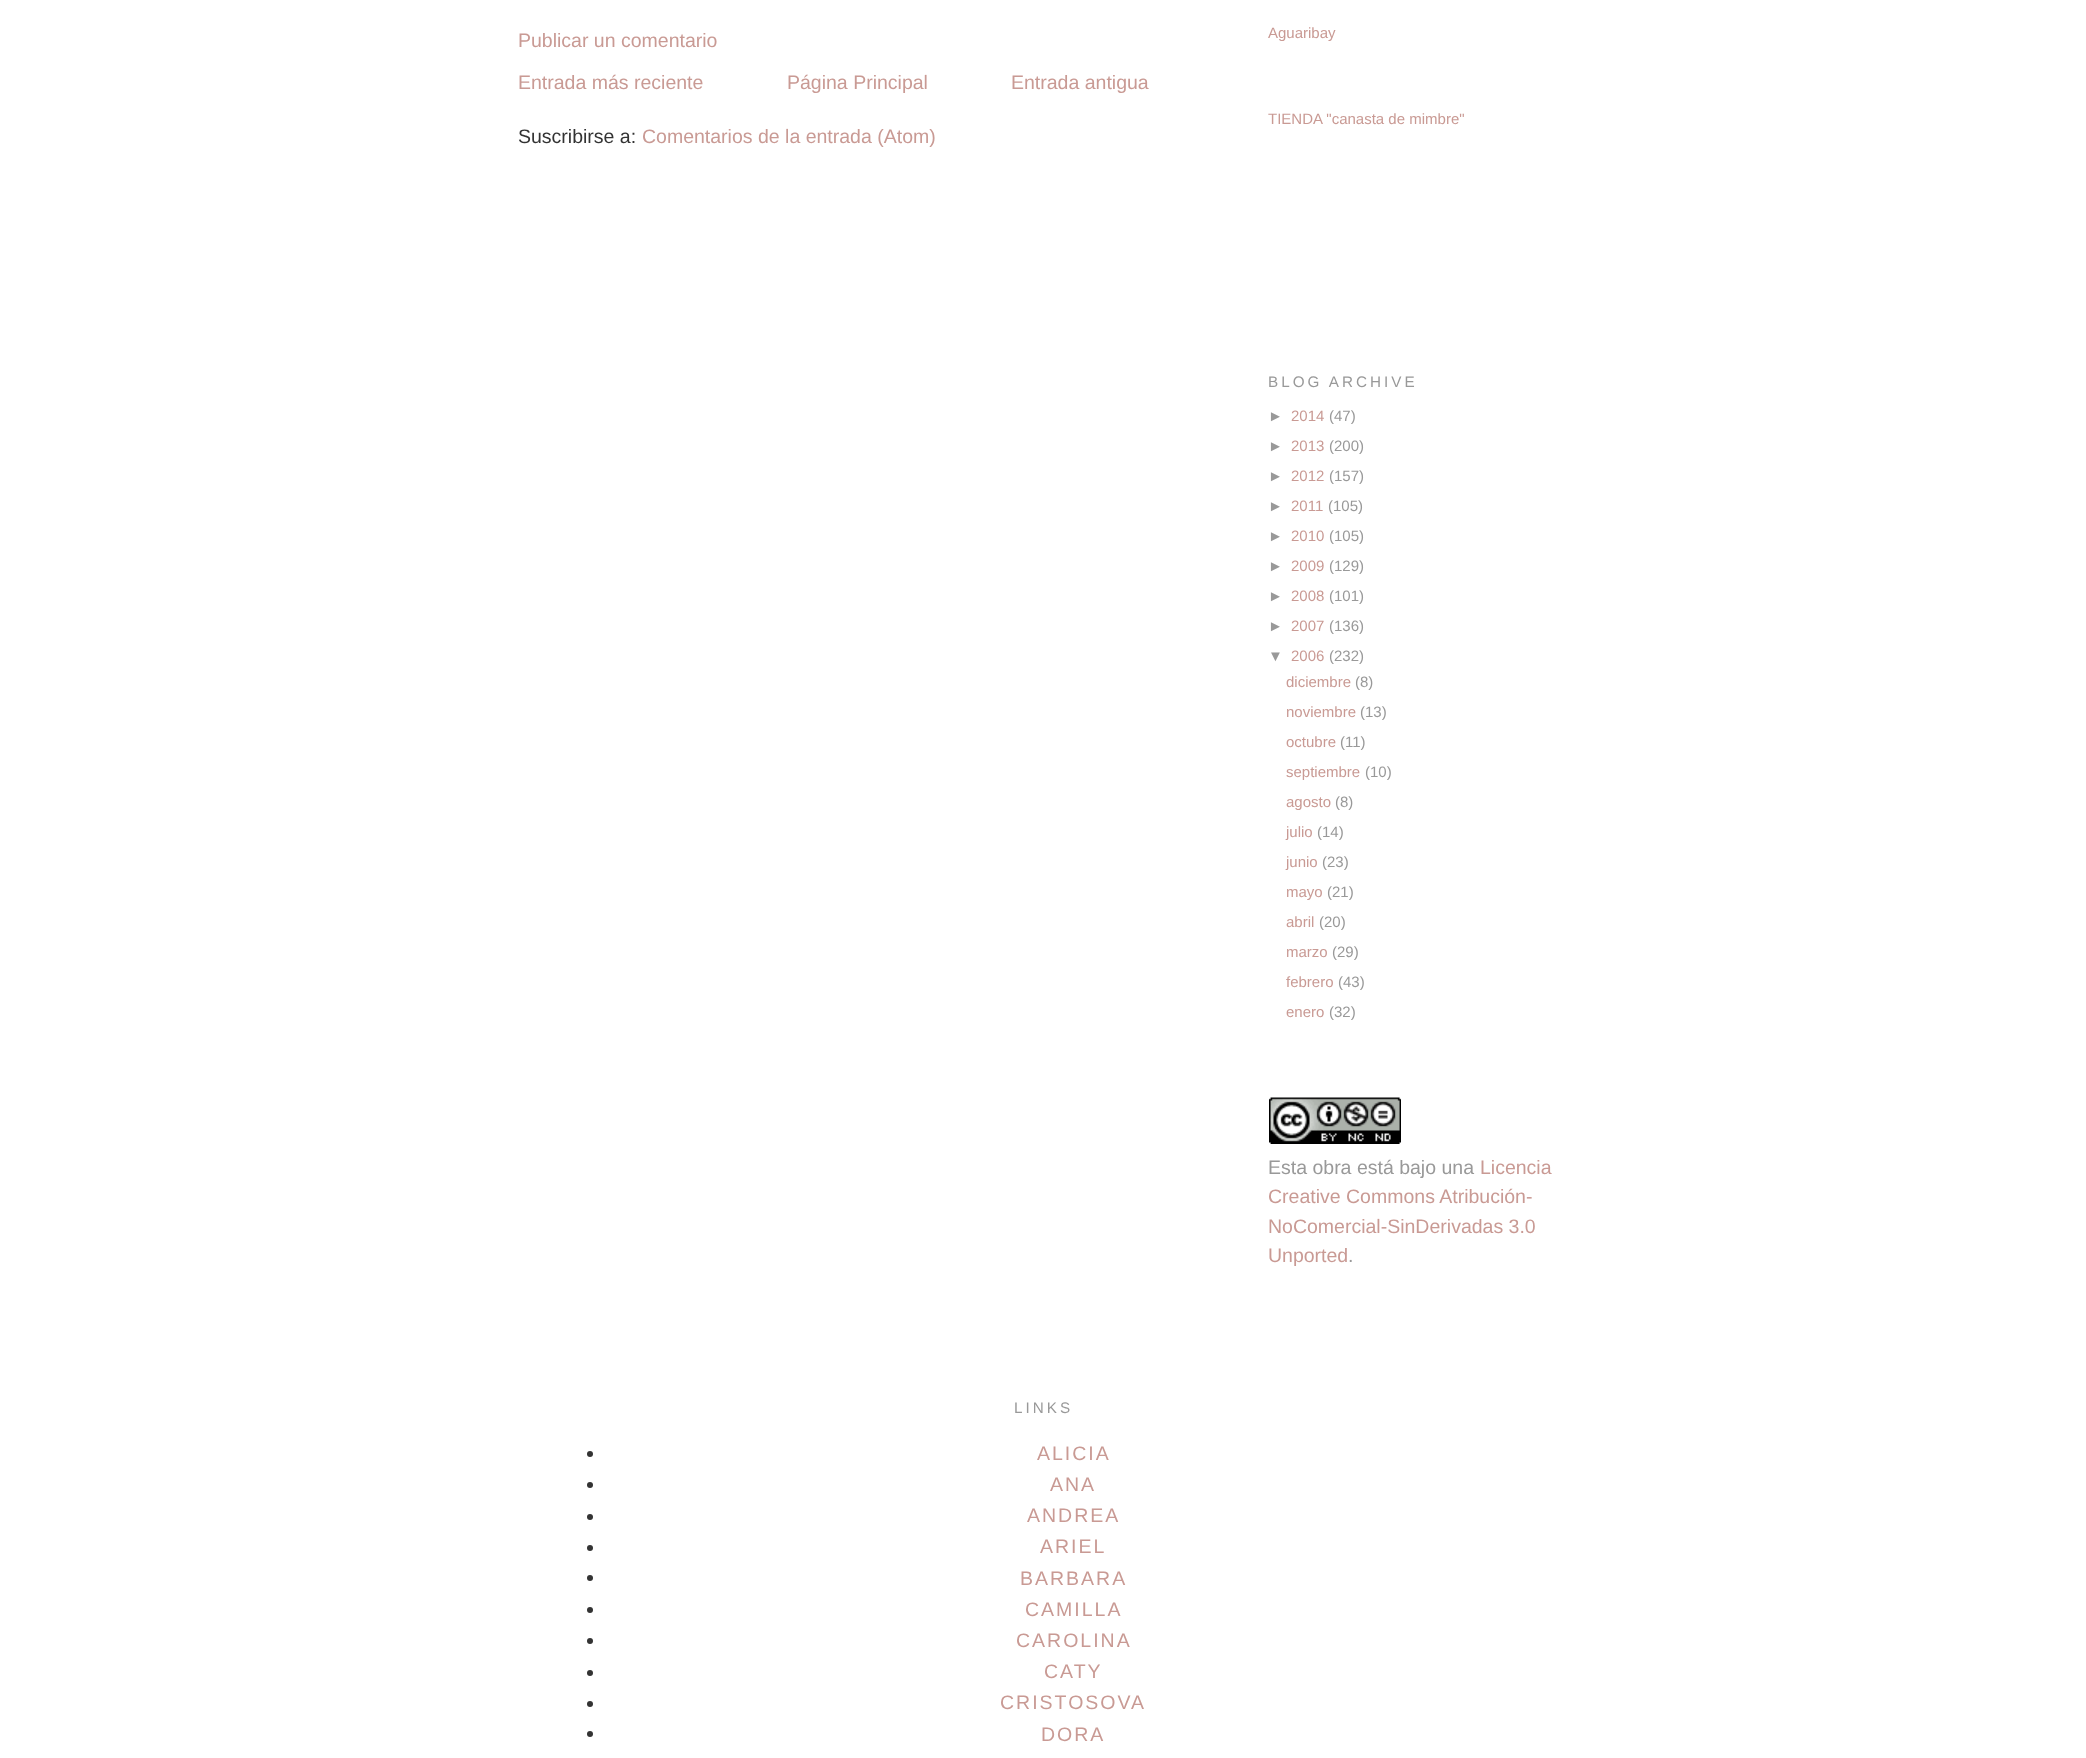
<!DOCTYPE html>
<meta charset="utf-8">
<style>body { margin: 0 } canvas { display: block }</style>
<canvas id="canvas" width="2086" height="1758"></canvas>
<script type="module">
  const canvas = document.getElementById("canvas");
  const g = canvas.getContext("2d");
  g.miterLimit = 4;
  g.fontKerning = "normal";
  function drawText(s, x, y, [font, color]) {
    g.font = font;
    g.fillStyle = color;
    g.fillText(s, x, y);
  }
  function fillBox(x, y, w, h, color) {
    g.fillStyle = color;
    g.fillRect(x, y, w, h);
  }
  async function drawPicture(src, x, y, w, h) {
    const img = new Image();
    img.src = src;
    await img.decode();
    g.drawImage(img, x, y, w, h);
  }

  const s1 = ["19.5px Liberation Sans", "#C99A94"];
  const s2 = ["19.5px Liberation Sans", "#333333"];
  const s3 = ["15px Liberation Sans", "#C99A94"];
  const s4 = ["15.25px Liberation Sans", "#999999"];
  const s5 = ["15px Liberation Sans", "#999999"];
  const s6 = ["19.5px Liberation Sans", "#999999"];

  fillBox(0, 0, 2086, 1758, "#FFFFFF");
  drawText("Publicar un comentario", 518, 47, s1);
  drawText("Entrada más reciente", 518, 89, s1);
  drawText("Página Principal", 787, 89, s1);
  drawText("Entrada antigua", 1011, 89, s1);
  drawText("Suscribirse a:", 518, 143, s2);
  drawText("Comentarios de la entrada (Atom)", 642, 143, s1);
  drawText("Aguaribay", 1268, 38, s3);
  drawText("TIENDA \"canasta de mimbre\"", 1268, 124, s3);
  g.letterSpacing = "3px";
  drawText("BLOG ARCHIVE", 1268, 387, s4);
  g.letterSpacing = "0px";
  drawText("►", 1268, 421, s5);
  drawText("2014", 1291, 421, s3);
  drawText("(47)", 1329, 421, s5);
  drawText("►", 1268, 451, s5);
  drawText("2013", 1291, 451, s3);
  drawText("(200)", 1329, 451, s5);
  drawText("►", 1268, 481, s5);
  drawText("2012", 1291, 481, s3);
  drawText("(157)", 1329, 481, s5);
  drawText("►", 1268, 511, s5);
  drawText("2011", 1291, 511, s3);
  drawText("(105)", 1328, 511, s5);
  drawText("►", 1268, 541, s5);
  drawText("2010", 1291, 541, s3);
  drawText("(105)", 1329, 541, s5);
  drawText("►", 1268, 571, s5);
  drawText("2009", 1291, 571, s3);
  drawText("(129)", 1329, 571, s5);
  drawText("►", 1268, 601, s5);
  drawText("2008", 1291, 601, s3);
  drawText("(101)", 1329, 601, s5);
  drawText("►", 1268, 631, s5);
  drawText("2007", 1291, 631, s3);
  drawText("(136)", 1329, 631, s5);
  drawText("▼", 1268, 661, s5);
  drawText("2006", 1291, 661, s3);
  drawText("(232)", 1329, 661, s5);
  drawText("diciembre", 1286, 687, s3);
  drawText("(8)", 1355, 687, s5);
  drawText("noviembre", 1286, 717, s3);
  drawText("(13)", 1360, 717, s5);
  drawText("octubre", 1286, 747, s3);
  drawText("(11)", 1340, 747, s5);
  drawText("septiembre", 1286, 777, s3);
  drawText("(10)", 1365, 777, s5);
  drawText("agosto", 1286, 807, s3);
  drawText("(8)", 1335, 807, s5);
  drawText("julio", 1286, 837, s3);
  drawText("(14)", 1317, 837, s5);
  drawText("junio", 1286, 867, s3);
  drawText("(23)", 1322, 867, s5);
  drawText("mayo", 1286, 897, s3);
  drawText("(21)", 1327, 897, s5);
  drawText("abril", 1286, 927, s3);
  drawText("(20)", 1319, 927, s5);
  drawText("marzo", 1286, 957, s3);
  drawText("(29)", 1332, 957, s5);
  drawText("febrero", 1286, 987, s3);
  drawText("(43)", 1338, 987, s5);
  drawText("enero", 1286, 1017, s3);
  drawText("(32)", 1329, 1017, s5);
  await drawPicture("pic1.png", 1269, 1097, 132, 47);
  drawText("Esta obra está bajo una", 1268, 1174, s6);
  drawText("Licencia", 1480, 1174, s1);
  drawText("Creative Commons Atribución-", 1268, 1203, s1);
  drawText("NoComercial-SinDerivadas 3.0", 1268, 1233, s1);
  drawText("Unported", 1268, 1262, s1);
  drawText(".", 1348, 1262, s6);
  g.letterSpacing = "3px";
  drawText("LINKS", 1014, 1413, s4);
  g.fillStyle = "#333333";
  g.beginPath();
  g.arc(590, 1454, 3, 0, Math.PI * 2);
  g.fill();
  g.letterSpacing = "2px";
  drawText("ALICIA", 1037, 1460, s1);
  g.fillStyle = "#333333";
  g.beginPath();
  g.arc(590, 1485, 3, 0, Math.PI * 2);
  g.fill();
  drawText("ANA", 1050, 1491, s1);
  g.fillStyle = "#333333";
  g.beginPath();
  g.arc(590, 1517, 3, 0, Math.PI * 2);
  g.fill();
  drawText("ANDREA", 1027, 1522, s1);
  g.fillStyle = "#333333";
  g.beginPath();
  g.arc(590, 1548, 3, 0, Math.PI * 2);
  g.fill();
  drawText("ARIEL", 1040, 1553, s1);
  g.fillStyle = "#333333";
  g.beginPath();
  g.arc(590, 1578, 3, 0, Math.PI * 2);
  g.fill();
  drawText("BARBARA", 1020, 1585, s1);
  g.fillStyle = "#333333";
  g.beginPath();
  g.arc(590, 1610, 3, 0, Math.PI * 2);
  g.fill();
  drawText("CAMILLA", 1025, 1616, s1);
  g.fillStyle = "#333333";
  g.beginPath();
  g.arc(590, 1641, 3, 0, Math.PI * 2);
  g.fill();
  drawText("CAROLINA", 1016, 1647, s1);
  g.fillStyle = "#333333";
  g.beginPath();
  g.arc(590, 1673, 3, 0, Math.PI * 2);
  g.fill();
  drawText("CATY", 1044, 1678, s1);
  g.fillStyle = "#333333";
  g.beginPath();
  g.arc(590, 1704, 3, 0, Math.PI * 2);
  g.fill();
  drawText("CRISTOSOVA", 1000, 1709, s1);
  g.fillStyle = "#333333";
  g.beginPath();
  g.arc(590, 1734, 3, 0, Math.PI * 2);
  g.fill();
  drawText("DORA", 1041, 1741, s1);
</script>
